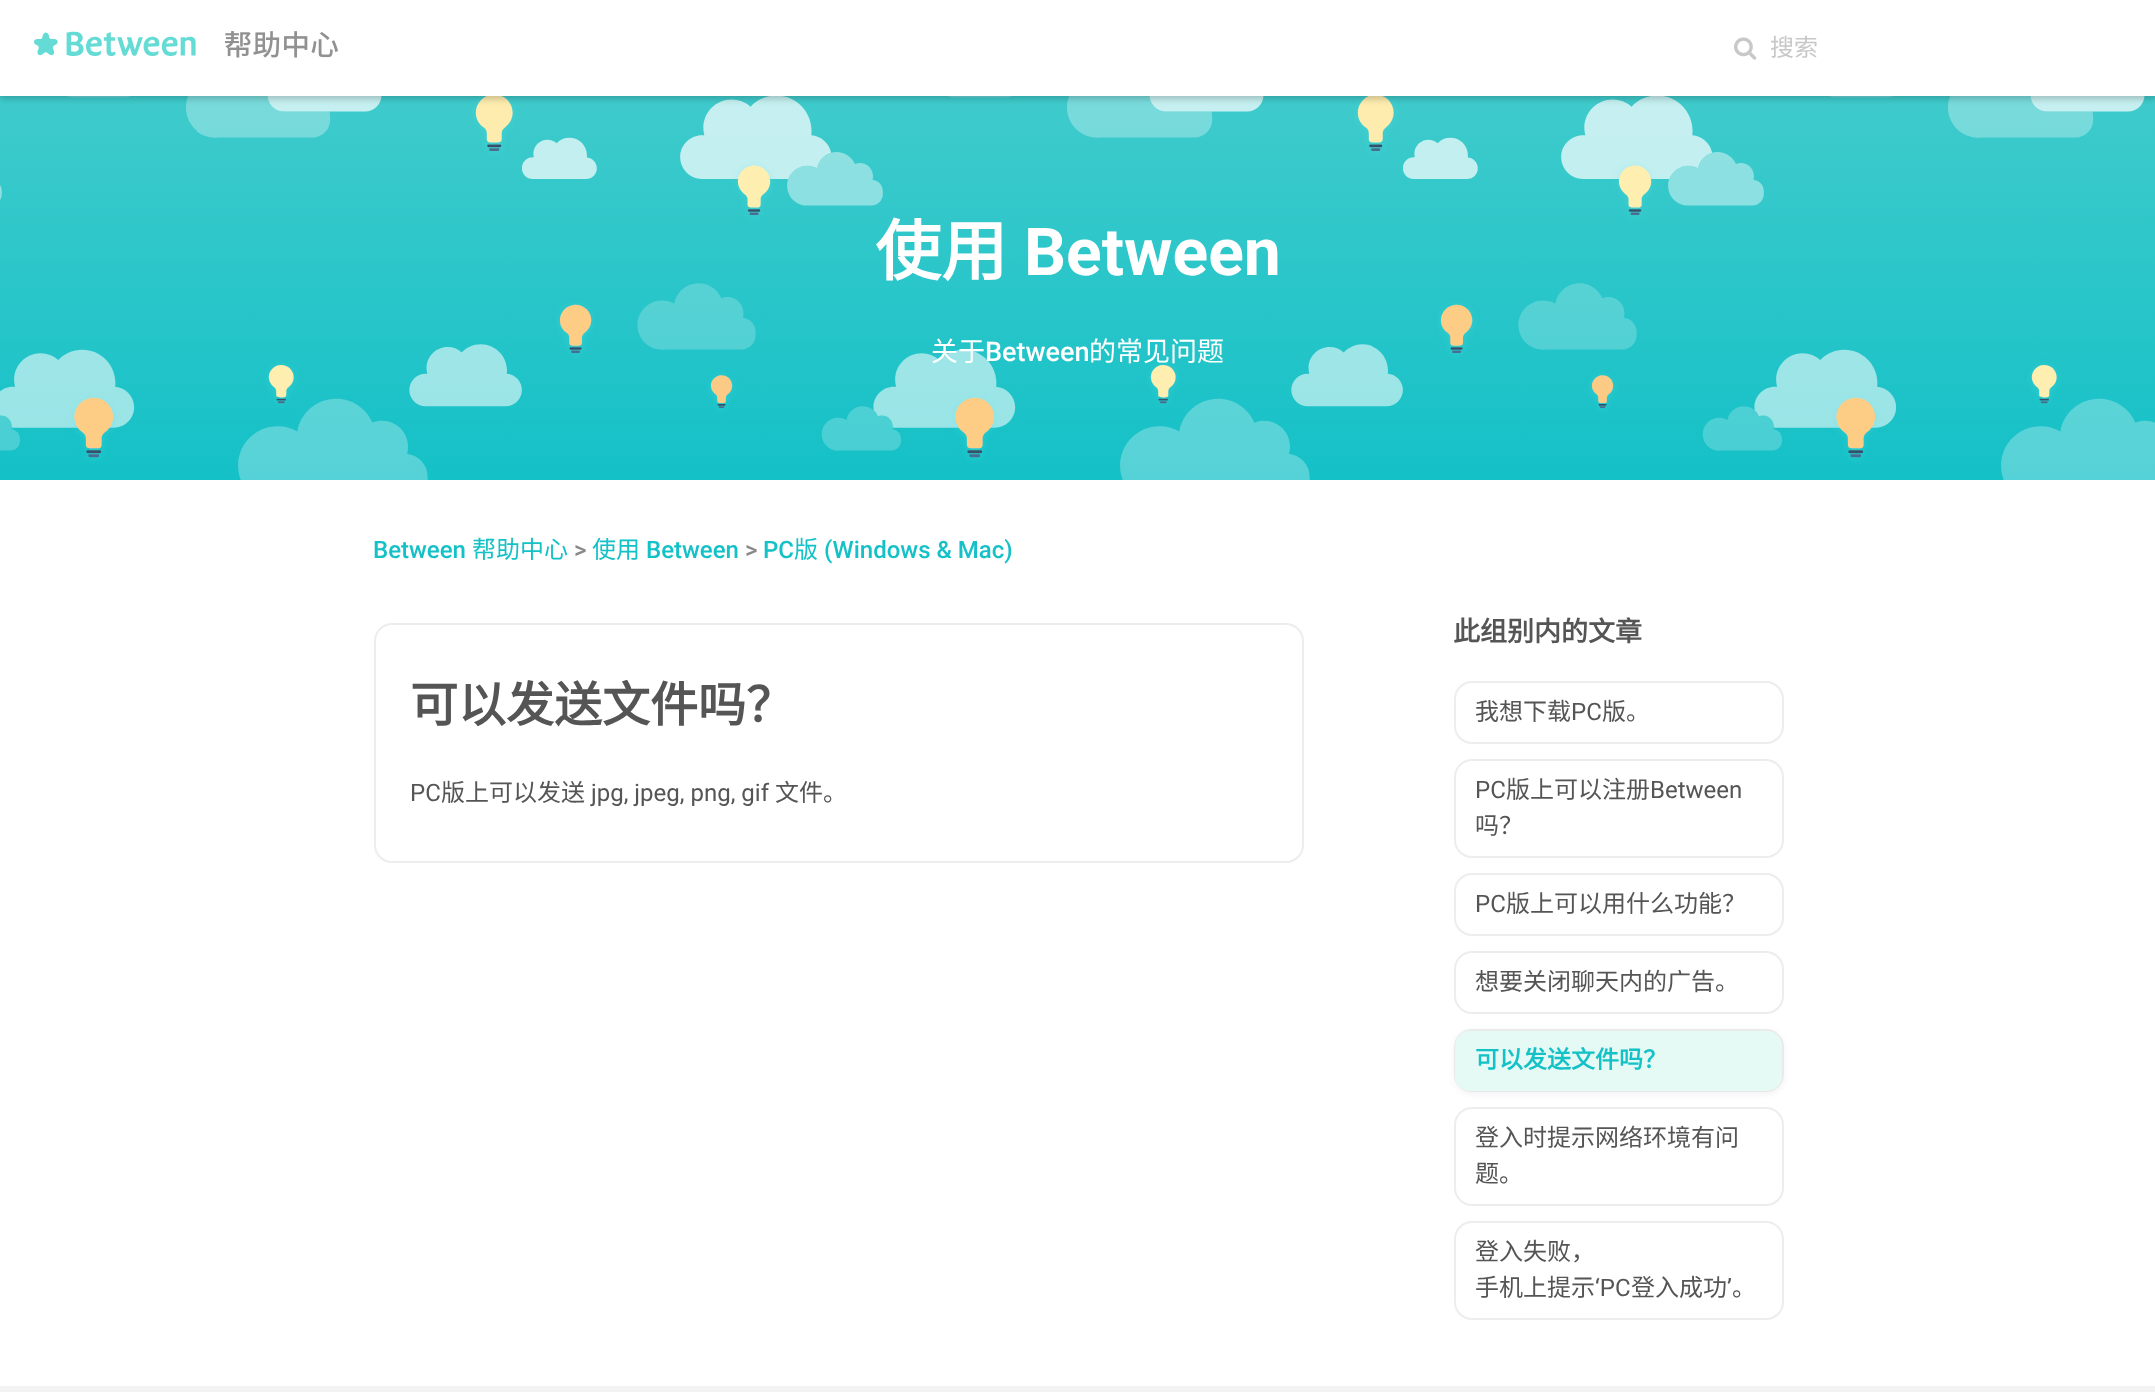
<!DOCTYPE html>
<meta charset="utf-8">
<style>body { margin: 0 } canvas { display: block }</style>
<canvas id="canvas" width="2155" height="1392"></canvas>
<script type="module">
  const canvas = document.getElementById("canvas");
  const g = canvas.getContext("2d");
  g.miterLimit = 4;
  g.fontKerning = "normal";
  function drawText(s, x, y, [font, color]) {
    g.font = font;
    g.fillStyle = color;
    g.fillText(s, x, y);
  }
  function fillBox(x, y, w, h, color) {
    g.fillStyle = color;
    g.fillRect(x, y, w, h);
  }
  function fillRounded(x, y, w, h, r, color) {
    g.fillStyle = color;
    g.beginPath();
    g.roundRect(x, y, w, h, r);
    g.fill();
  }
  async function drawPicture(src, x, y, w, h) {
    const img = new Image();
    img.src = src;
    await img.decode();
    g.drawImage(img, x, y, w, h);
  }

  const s1 = ["24px Noto Sans CJK SC", "#C8C8C8"];
  const s2 = ["bold 66px Noto Sans CJK SC", "#FFFFFF"];
  const s3 = ["bold 66px Roboto", "#FFFFFF"];
  const s4 = ["27px Noto Sans CJK SC", "#FFFFFF"];
  const s5 = ["500 27px Roboto", "#FFFFFF"];
  const s6 = ["500 24px Roboto", "#14C1C7"];
  const s7 = ["24px Noto Sans CJK SC", "#14C1C7"];
  const s8 = ["500 24px Roboto", "#888888"];
  const s9 = ["bold 48px Noto Sans CJK SC", "#555555"];
  const s10 = ["24px Roboto", "#555555"];
  const s11 = ["24px Noto Sans CJK SC", "#555555"];
  const s12 = ["bold 27px Noto Sans CJK SC", "#555555"];
  const s13 = ["bold 24px Noto Sans CJK SC", "#14C1C7"];

  fillBox(0, 0, 2155, 1392, "#FFFFFF");
  await drawPicture("pic4.png", 0, 96, 2155, 384);
  g.fillStyle = "rgba(0, 0, 0, 0.2)";
  g.filter = "blur(3px)";
  g.beginPath();
  g.rect(0, 3, 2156, 96);
  g.fill();
  g.filter = "none";
  fillBox(0, 0, 2155, 96, "#FFFFFF");
  await drawPicture("pic1.png", 34, 31, 162, 25);
  await drawPicture("pic2.png", 225, 31, 113, 27);
  await drawPicture("pic3.png", 1734, 37, 23, 23);
  drawText("搜索", 1770, 56, s1);
  drawText("使用", 875, 275, s2);
  drawText("Between", 1024, 275, s3);
  drawText("关于", 931, 361, s4);
  drawText("Between", 985, 361, s5);
  drawText("的常见问题", 1089, 361, s4);
  drawText("Between", 373, 558, s6);
  drawText("帮助中心", 472, 558, s7);
  drawText(">", 574, 558, s8);
  drawText("使用", 592, 558, s7);
  drawText("Between", 646, 558, s6);
  drawText(">", 745, 558, s8);
  drawText("PC", 763, 558, s6);
  drawText("版", 794, 558, s7);
  drawText("(Windows & Mac)", 824, 558, s6);
  g.beginPath();
  g.roundRect(375, 624, 928, 238, 17);
  g.strokeStyle = "rgba(220, 220, 220, 0.5)";
  g.lineWidth = 2;
  g.stroke();
  drawText("可以发送文件吗？", 410, 722, s9);
  drawText("PC", 410, 801, s10);
  drawText("版上可以发送", 441, 801, s11);
  drawText("jpg, jpeg, png, gif", 591, 801, s10);
  drawText("文件。", 775, 801, s11);
  drawText("此组别内的文章", 1453, 641, s12);
  g.beginPath();
  g.roundRect(1455, 682, 328, 61, 17);
  g.stroke();
  drawText("我想下载", 1475, 720, s11);
  drawText("PC", 1571, 720, s10);
  drawText("版。", 1602, 720, s11);
  g.beginPath();
  g.roundRect(1455, 760, 328, 97, 17);
  g.stroke();
  drawText("PC", 1475, 798, s10);
  drawText("版上可以注册", 1506, 798, s11);
  drawText("Between", 1650, 798, s10);
  drawText("吗？", 1475, 834, s11);
  g.beginPath();
  g.roundRect(1455, 874, 328, 61, 17);
  g.stroke();
  drawText("PC", 1475, 912, s10);
  drawText("版上可以用什么功能？", 1506, 912, s11);
  g.beginPath();
  g.roundRect(1455, 952, 328, 61, 17);
  g.stroke();
  drawText("想要关闭聊天内的广告。", 1475, 990, s11);
  g.fillStyle = "rgba(0, 0, 0, 0.05)";
  g.filter = "blur(3px)";
  g.beginPath();
  g.roundRect(1454, 1031, 330, 63, 18);
  g.fill();
  g.filter = "none";
  g.beginPath();
  g.roundRect(1455, 1030, 328, 61, 17);
  g.stroke();
  fillRounded(1455, 1031, 327, 60, 15, "#E5FAF5");
  drawText("可以发送文件吗？", 1475, 1068, s13);
  g.beginPath();
  g.roundRect(1455, 1108, 328, 97, 17);
  g.stroke();
  drawText("登入时提示网络环境有问", 1475, 1146, s11);
  drawText("题。", 1475, 1182, s11);
  g.beginPath();
  g.roundRect(1455, 1222, 328, 97, 17);
  g.stroke();
  drawText("登入失败，", 1475, 1260, s11);
  drawText("手机上提示", 1475, 1296, s11);
  drawText("‘PC", 1595, 1296, s10);
  drawText("登入成功", 1631, 1296, s11);
  drawText("’", 1727, 1296, s10);
  drawText("。", 1732, 1296, s11);
  fillBox(0, 1386, 2155, 6, "#F3F3F3");
</script>
